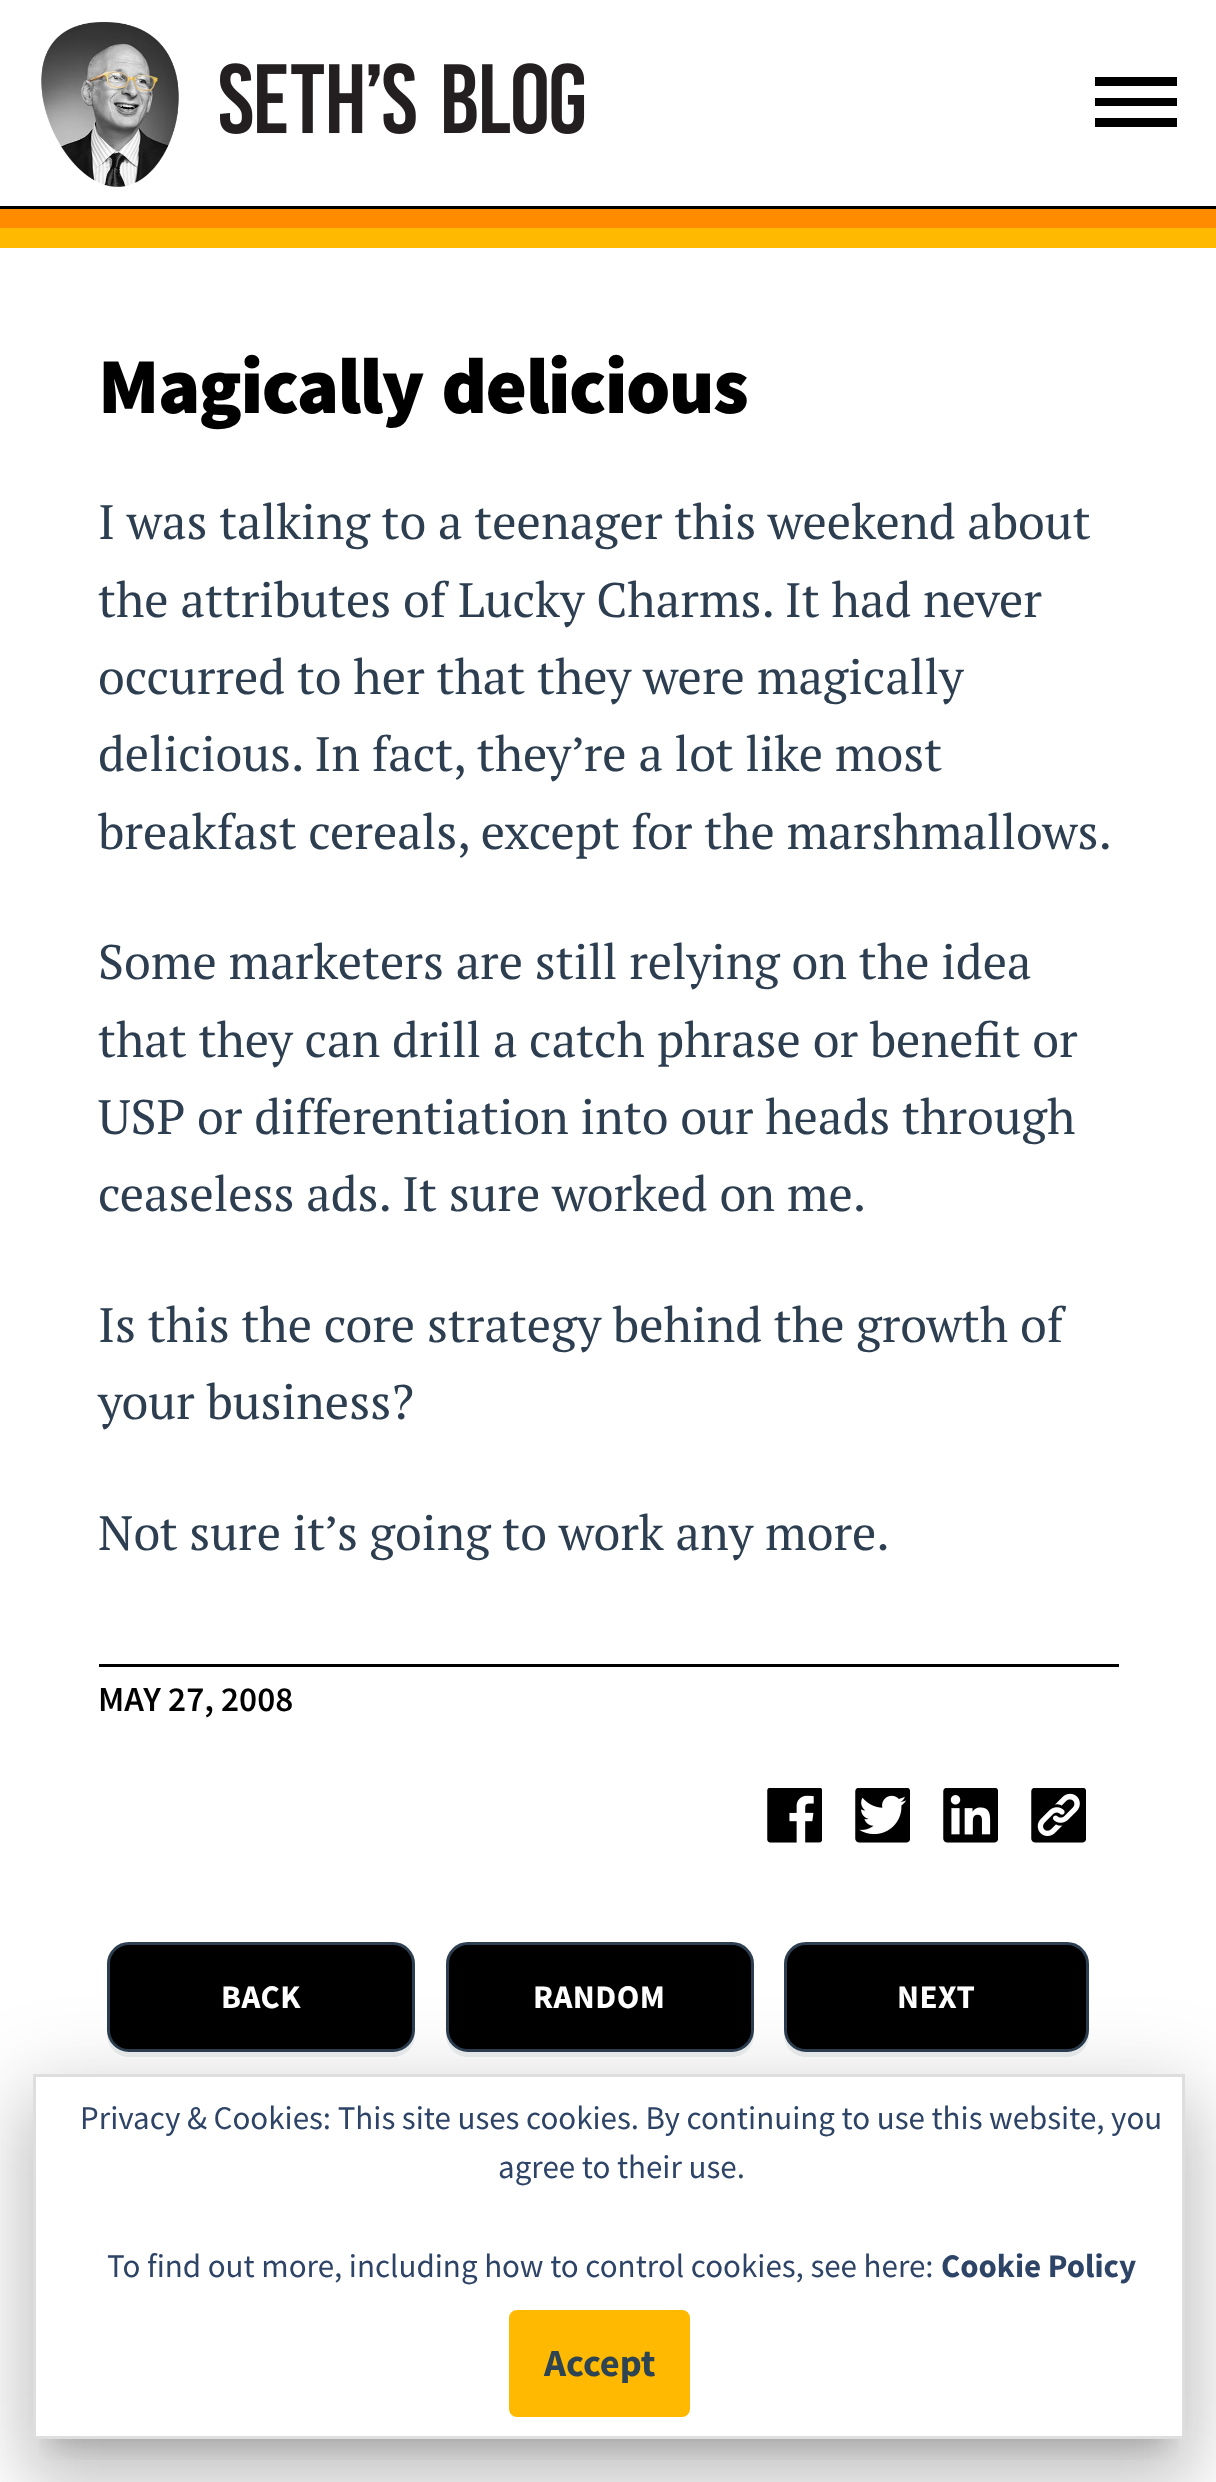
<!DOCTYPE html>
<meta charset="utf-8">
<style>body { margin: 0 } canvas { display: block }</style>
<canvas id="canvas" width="1216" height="2482"></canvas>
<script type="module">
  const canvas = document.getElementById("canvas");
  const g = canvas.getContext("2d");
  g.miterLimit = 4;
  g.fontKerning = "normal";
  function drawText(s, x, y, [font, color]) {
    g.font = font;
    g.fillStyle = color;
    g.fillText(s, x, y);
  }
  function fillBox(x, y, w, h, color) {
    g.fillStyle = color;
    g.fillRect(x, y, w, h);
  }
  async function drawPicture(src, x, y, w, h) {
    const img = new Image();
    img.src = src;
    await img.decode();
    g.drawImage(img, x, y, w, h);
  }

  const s1 = ["900 79.25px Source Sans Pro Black", "#000000"];
  const s2 = ["48.4px PT Serif", "#2C3E50"];
  const s3 = ["600 35.25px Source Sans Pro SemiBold", "#000000"];
  const s4 = ["bold 33px Source Sans Pro", "#FFFFFF"];
  const s5 = ["33px Source Sans Pro", "#2E4467"];
  const s6 = ["bold 33px Source Sans Pro", "#2E4467"];
  const s7 = ["bold 38.5px Source Sans Pro", "#2E4453"];

  fillBox(0, 0, 1216, 2482, "#FFFFFF");
  await drawPicture("pic1.png", 41, 22, 138, 165);
  await drawPicture("pic2.png", 220, 63, 365, 71);
  fillBox(1095, 77, 82, 9, "#000000");
  fillBox(1095, 98, 82, 8, "#000000");
  fillBox(1095, 118, 82, 9, "#000000");
  fillBox(0, 209, 1216, 19, "#FF8C00");
  fillBox(0, 206, 1216, 3, "#000000");
  fillBox(0, 228, 1216, 20, "#FFB900");
  g.letterSpacing = "-1.6px";
  g.wordSpacing = "4px";
  drawText("Magically delicious", 98, 413, s1);
  g.letterSpacing = "0px";
  g.wordSpacing = "0px";
  drawText("I was talking to a teenager this weekend about", 98, 539, s2);
  drawText("the attributes of Lucky Charms. It had never", 98, 617, s2);
  drawText("occurred to her that they were magically", 98, 694, s2);
  drawText("delicious. In fact, they’re a lot like most", 98, 771, s2);
  drawText("breakfast cereals, except for the marshmallows.", 98, 849, s2);
  drawText("Some marketers are still relying on the idea", 98, 979, s2);
  drawText("that they can drill a catch phrase or benefit or", 98, 1057, s2);
  drawText("USP or differentiation into our heads through", 98, 1134, s2);
  drawText("ceaseless ads. It sure worked on me.", 98, 1211, s2);
  drawText("Is this the core strategy behind the growth of", 98, 1342, s2);
  drawText("your business?", 98, 1419, s2);
  drawText("Not sure it’s going to work any more.", 98, 1550, s2);
  fillBox(99, 1664, 1020, 3, "#000000");
  drawText("MAY 27, 2008", 98, 1711, s3);
  await drawPicture("pic3.png", 767, 1788, 55, 55);
  await drawPicture("pic4.png", 855, 1788, 55, 55);
  await drawPicture("pic5.png", 943, 1788, 55, 55);
  await drawPicture("pic6.png", 1031, 1788, 55, 55);
  g.fillStyle = "#ECF0F1";
  g.beginPath();
  g.moveTo(107, 1966);
  g.lineTo(107, 2035);
  g.bezierCurveTo(107, 2047, 117, 2057, 129, 2057);
  g.lineTo(393, 2057);
  g.bezierCurveTo(405, 2057, 415, 2047, 415, 2035);
  g.lineTo(415, 2033);
  g.bezierCurveTo(413, 2043, 404, 2052, 393, 2052);
  g.lineTo(129, 2052);
  g.bezierCurveTo(117, 2052, 107, 2042, 107, 2030);
  g.closePath();
  g.fill();
  g.fillStyle = "#000000";
  g.beginPath();
  g.roundRect(108.5, 1943.5, 305, 107, 20.5);
  g.fill();
  g.strokeStyle = "#2C3E50";
  g.lineWidth = 3;
  g.stroke();
  g.letterSpacing = "0.5px";
  drawText("BACK", 221, 2008, s4);
  g.fillStyle = "#ECF0F1";
  g.beginPath();
  g.moveTo(446, 2034);
  g.lineTo(446, 2035);
  g.bezierCurveTo(446, 2047, 456, 2057, 468, 2057);
  g.lineTo(732, 2057);
  g.bezierCurveTo(744, 2057, 754, 2047, 754, 2035);
  g.lineTo(754, 1969);
  g.lineTo(754, 1964);
  g.lineTo(754, 2030);
  g.bezierCurveTo(754, 2042, 744, 2052, 732, 2052);
  g.lineTo(468, 2052);
  g.bezierCurveTo(457, 2052, 448, 2044, 446, 2034);
  g.closePath();
  g.fill();
  g.fillStyle = "#000000";
  g.beginPath();
  g.roundRect(447.5, 1943.5, 305, 107, 20.5);
  g.fill();
  g.stroke();
  drawText("RANDOM", 533, 2008, s4);
  g.fillStyle = "#ECF0F1";
  g.beginPath();
  g.moveTo(784, 2033);
  g.lineTo(784, 2035);
  g.bezierCurveTo(784, 2047, 794, 2057, 806, 2057);
  g.lineTo(1067, 2057);
  g.bezierCurveTo(1079, 2057, 1089, 2047, 1089, 2035);
  g.lineTo(1089, 2030);
  g.bezierCurveTo(1089, 2042, 1079, 2052, 1067, 2052);
  g.lineTo(806, 2052);
  g.bezierCurveTo(795, 2052, 786, 2043, 784, 2033);
  g.closePath();
  g.fill();
  g.fillStyle = "#000000";
  g.beginPath();
  g.roundRect(785.5, 1943.5, 302, 107, 20.5);
  g.fill();
  g.stroke();
  drawText("NEXT", 897, 2008, s4);
  g.save();
  g.beginPath();
  g.rect(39, 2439, 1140, 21);
  g.clip();
  g.fillStyle = "rgba(0, 0, 0, 0.2)";
  g.filter = "blur(14px)";
  g.beginPath();
  g.rect(52, 2115, 1114, 327);
  g.fill();
  g.filter = "none";
  g.restore();
  g.save();
  g.beginPath();
  g.moveTo(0, 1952);
  g.lineTo(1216, 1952);
  g.lineTo(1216, 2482);
  g.lineTo(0, 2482);
  g.closePath();
  g.moveTo(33, 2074);
  g.lineTo(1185, 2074);
  g.lineTo(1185, 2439);
  g.lineTo(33, 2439);
  g.closePath();
  g.clip("evenodd");
  g.fillStyle = "rgba(0, 0, 0, 0.12)";
  g.filter = "blur(41px)";
  g.beginPath();
  g.rect(19, 2076, 1180, 394);
  g.fill();
  g.filter = "none";
  g.restore();
  g.save();
  g.beginPath();
  g.moveTo(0, 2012);
  g.lineTo(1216, 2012);
  g.lineTo(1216, 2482);
  g.lineTo(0, 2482);
  g.closePath();
  g.moveTo(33, 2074);
  g.lineTo(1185, 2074);
  g.lineTo(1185, 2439);
  g.lineTo(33, 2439);
  g.closePath();
  g.clip("evenodd");
  g.fillStyle = "rgba(0, 0, 0, 0.14)";
  g.filter = "blur(33px)";
  g.beginPath();
  g.rect(28, 2112, 1163, 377);
  g.fill();
  g.filter = "none";
  g.restore();
  g.strokeStyle = "#DEDEDE";
  g.strokeRect(34.5, 2075.5, 1149, 362);
  g.letterSpacing = "0px";
  drawText("Privacy & Cookies: This site uses cookies. By continuing to use this website, you", 80, 2129, s5);
  drawText("agree to their use.", 498, 2178, s5);
  drawText("To find out more, including how to control cookies, see here:", 107, 2277, s5);
  drawText("Cookie Policy", 941, 2277, s6);
  g.fillStyle = "#FFB900";
  g.beginPath();
  g.roundRect(510.5, 2311.5, 178, 104, 6.5);
  g.fill();
  g.strokeStyle = "#FFB900";
  g.stroke();
  drawText("Accept", 544, 2376, s7);
</script>
